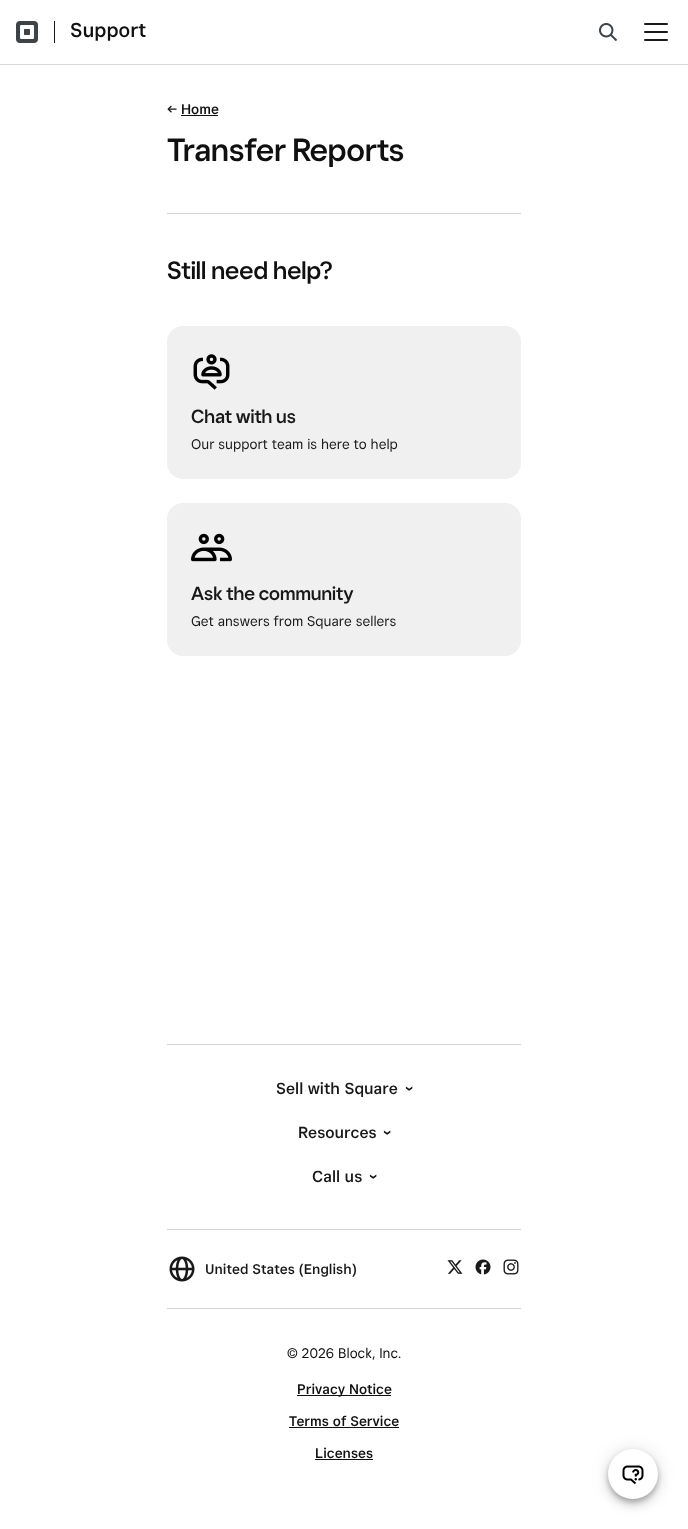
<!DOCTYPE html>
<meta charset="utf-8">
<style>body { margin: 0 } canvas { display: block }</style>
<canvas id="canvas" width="688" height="1529"></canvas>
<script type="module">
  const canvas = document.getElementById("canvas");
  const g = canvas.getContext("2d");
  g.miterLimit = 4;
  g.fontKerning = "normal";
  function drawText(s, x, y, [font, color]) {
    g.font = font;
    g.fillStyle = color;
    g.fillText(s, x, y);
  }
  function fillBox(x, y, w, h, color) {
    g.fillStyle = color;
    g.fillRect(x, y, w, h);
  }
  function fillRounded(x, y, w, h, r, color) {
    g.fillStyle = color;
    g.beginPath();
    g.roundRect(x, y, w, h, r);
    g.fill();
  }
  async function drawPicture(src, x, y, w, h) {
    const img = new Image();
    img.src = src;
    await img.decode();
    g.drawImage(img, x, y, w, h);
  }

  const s1 = ["500 20px 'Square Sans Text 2'", "#101010"];
  const s2 = ["500 14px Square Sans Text", "#101010"];
  const s3 = ["500 32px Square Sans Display", "#101010"];
  const s4 = ["500 25px Square Sans Display", "#101010"];
  const s5 = ["500 19px 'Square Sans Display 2'", "#181818"];
  const s6 = ["14px Square Sans Text", "#181818"];
  const s7 = ["500 16px Square Sans Text", "#181818"];
  const s8 = ["500 14px Square Sans Text", "#181818"];
  const s9 = ["14px 'Square Sans Text 2'", "#101010"];

  fillBox(0, 0, 688, 1529, "#FFFFFF");
  fillBox(0, 64, 688, 1, "#D9D9D9");
  await drawPicture("pic1.png", 16, 21, 22, 22);
  fillBox(54, 21, 1, 22, "#1A1A1A");
  drawText("Support", 70, 37, s1);
  await drawPicture("pic2.png", 599, 23, 19, 19);
  fillRounded(644, 23, 24, 2, 1, "#1A1A1A");
  fillRounded(644, 31, 24, 2, 1, "#1A1A1A");
  fillRounded(644, 39, 24, 2, 1, "#1A1A1A");
  drawText("←", 167, 114, s2);
  drawText("Home", 181, 114, s2);
  fillBox(181, 115, 37, 1, "#101010");
  drawText("Transfer Reports", 167, 161, s3);
  fillBox(167, 213, 354, 1, "#D3D3D3");
  drawText("Still need help?", 167, 279, s4);
  fillRounded(167, 326, 354, 153, 16, "#F0F0F0");
  await drawPicture("pic3.png", 193, 354, 37, 36);
  drawText("Chat with us", 191, 423, s5);
  drawText("Our support team is here to help", 191, 449, s6);
  fillRounded(167, 503, 354, 153, 16, "#F0F0F0");
  await drawPicture("pic4.png", 191, 533, 41, 29);
  drawText("Ask the community", 191, 600, s5);
  drawText("Get answers from Square sellers", 191, 626, s6);
  fillBox(167, 1044, 354, 1, "#D3D3D3");
  drawText("Sell with Square", 276, 1094, s7);
  g.fillStyle = "#101010";
  g.save();
  g.translate(404, 1086);
  g.rotate(90 * Math.PI / 180);
  g.fillText("›", 0, 0);
  g.restore();
  drawText("Resources", 298, 1138, s7);
  g.fillStyle = "#101010";
  g.save();
  g.translate(382, 1130);
  g.rotate(90 * Math.PI / 180);
  g.fillText("›", 0, 0);
  g.restore();
  drawText("Call us", 312, 1182, s7);
  g.fillStyle = "#101010";
  g.save();
  g.translate(368, 1174);
  g.rotate(90 * Math.PI / 180);
  g.fillText("›", 0, 0);
  g.restore();
  fillBox(167, 1229, 354, 1, "#D3D3D3");
  fillBox(167, 1308, 354, 1, "#D3D3D3");
  await drawPicture("pic5.png", 169, 1256, 26, 26);
  drawText("United States (English)", 205, 1274, s8);
  await drawPicture("pic6.png", 447, 1260, 16, 14);
  await drawPicture("pic7.png", 475, 1259, 16, 16);
  await drawPicture("pic8.png", 503, 1259, 16, 16);
  drawText("© 2026 Block, Inc.", 287, 1358, s9);
  fillBox(297, 1395, 94, 1, "#101010");
  drawText("Privacy Notice", 297, 1394, s2);
  drawText("Terms of Service", 289, 1426, s2);
  fillBox(289, 1427, 110, 1, "#101010");
  drawText("Licenses", 315, 1458, s2);
  fillBox(315, 1459, 58, 1, "#101010");
  g.fillStyle = "rgba(0, 0, 0, 0.12)";
  g.filter = "blur(9px)";
  g.beginPath();
  g.roundRect(608, 1450, 50, 50, 25);
  g.fill();
  g.filter = "none";
  g.fillStyle = "rgba(0, 0, 0, 0.2)";
  g.filter = "blur(2.5px)";
  g.beginPath();
  g.roundRect(608, 1452, 50, 50, 25);
  g.fill();
  g.filter = "none";
  g.fillStyle = "rgba(0, 0, 0, 0.14)";
  g.filter = "blur(5px)";
  g.beginPath();
  g.roundRect(608, 1455, 50, 50, 25);
  g.fill();
  g.filter = "none";
  g.fillStyle = "#FFFFFF";
  g.beginPath();
  g.arc(633, 1474, 25, 0, Math.PI * 2);
  g.fill();
  await drawPicture("pic9.png", 622, 1465, 22, 20);
</script>
